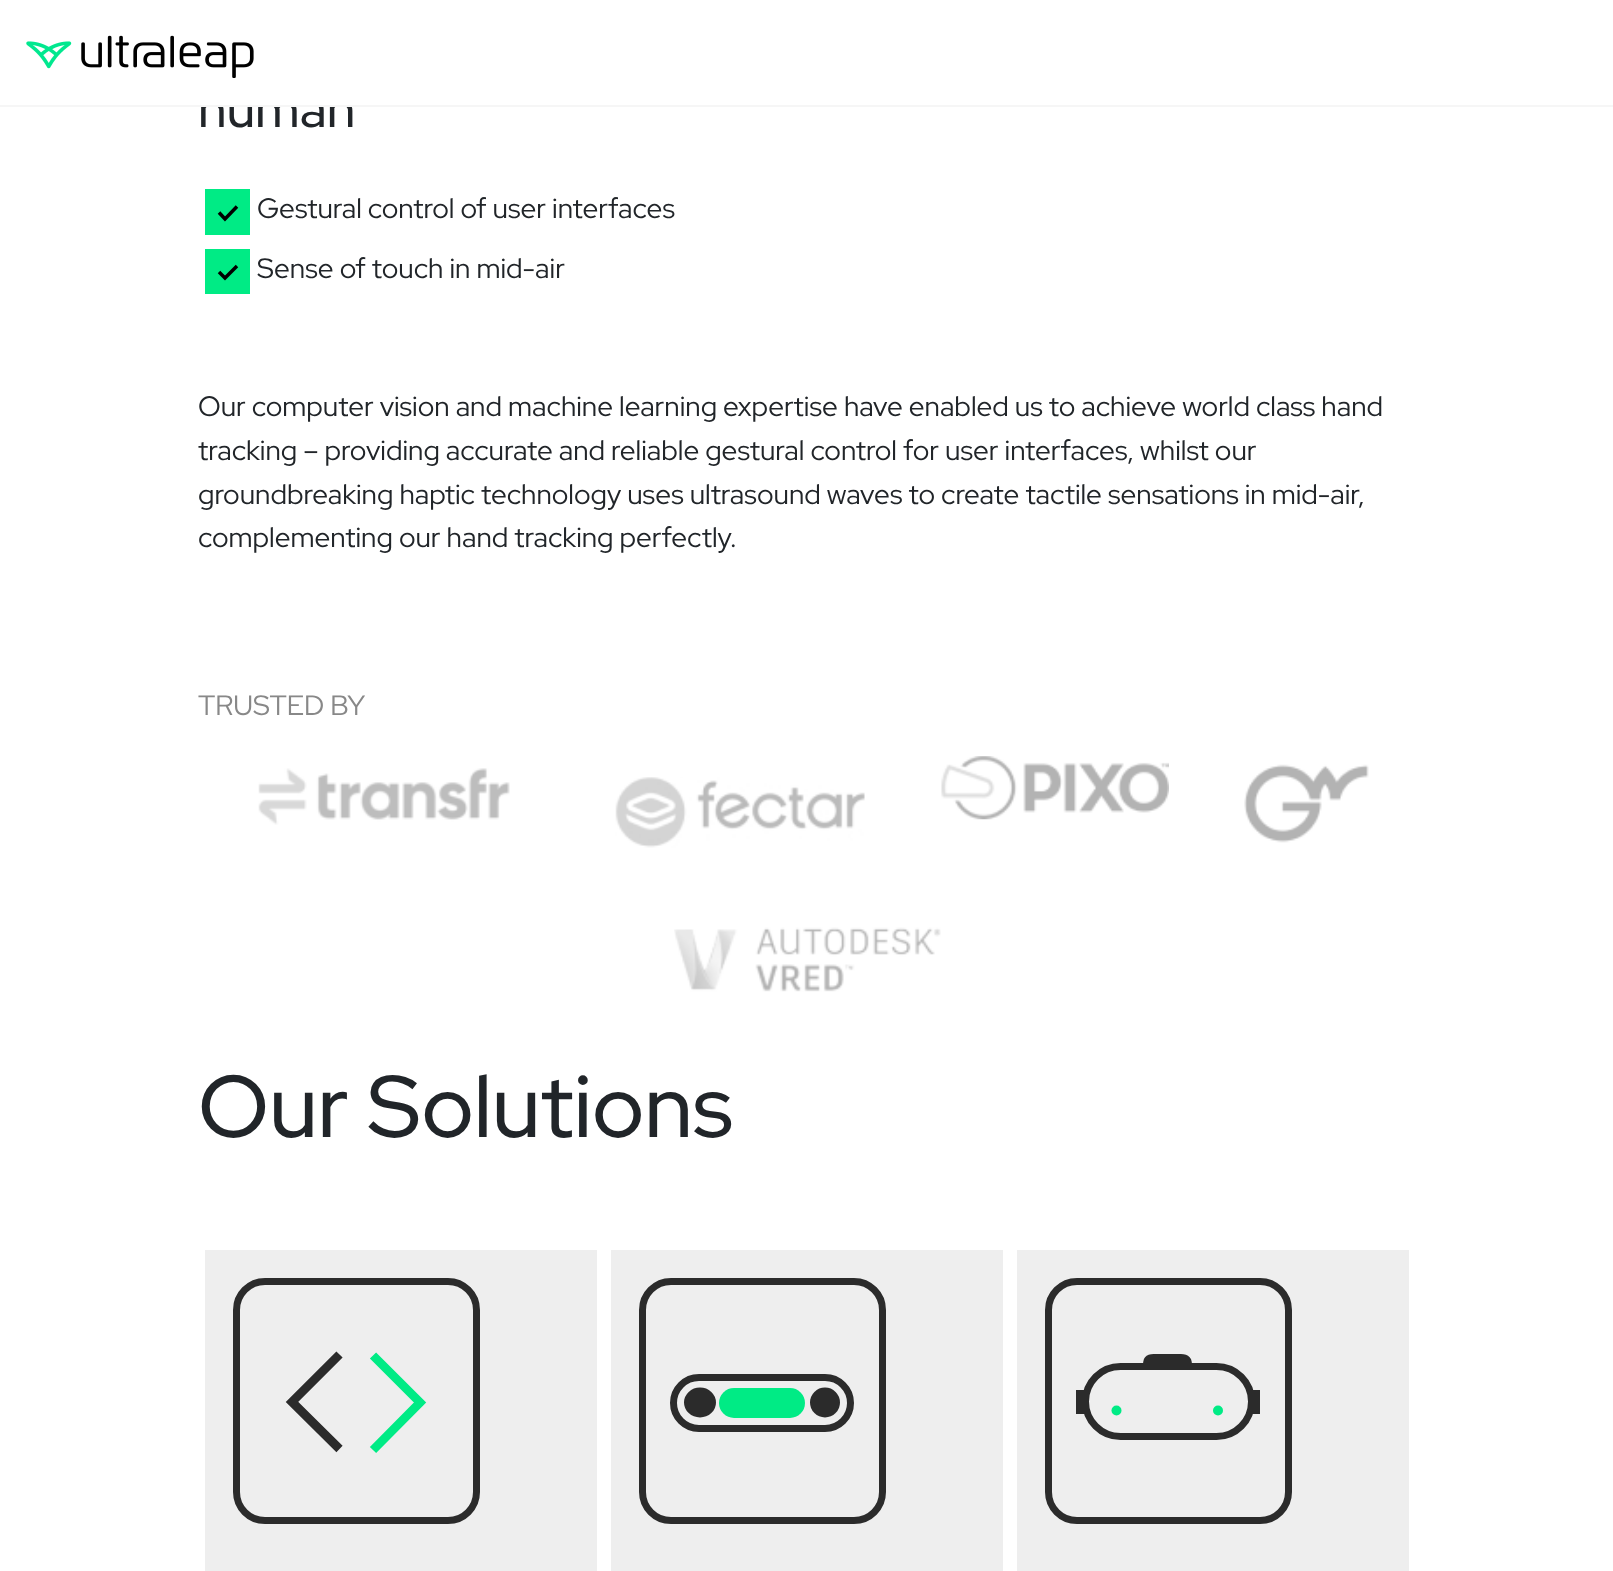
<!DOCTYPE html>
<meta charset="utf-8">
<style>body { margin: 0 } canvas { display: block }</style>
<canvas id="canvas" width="1613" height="1571"></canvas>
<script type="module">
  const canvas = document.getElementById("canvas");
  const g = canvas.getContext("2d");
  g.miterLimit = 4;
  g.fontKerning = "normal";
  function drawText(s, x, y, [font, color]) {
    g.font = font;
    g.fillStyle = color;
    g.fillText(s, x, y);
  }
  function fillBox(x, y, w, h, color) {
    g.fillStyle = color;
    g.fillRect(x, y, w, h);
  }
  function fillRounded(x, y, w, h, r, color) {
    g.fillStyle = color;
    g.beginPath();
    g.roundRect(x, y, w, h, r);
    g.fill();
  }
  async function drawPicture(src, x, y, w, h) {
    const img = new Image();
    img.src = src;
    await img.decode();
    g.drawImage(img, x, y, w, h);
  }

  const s1 = ["500 51.5px Red Hat Display", "#212529"];
  const s2 = ["28px Red Hat Display", "#212529"];
  const s3 = ["28px Red Hat Display", "#888888"];
  const s4 = ["500 87.5px Red Hat Display", "#212529"];

  fillBox(0, 0, 1613, 1571, "#FFFFFF");
  drawText("human", 198, 127, s1);
  fillBox(200, 89, 151, 16, "#FFFFFF");
  fillBox(0, 105, 1613, 2, "#F6F6F6");
  await drawPicture("pic1.png", 26, 35, 228, 43);
  fillBox(205, 189, 45, 46, "#00EB85");
  drawText("Gestural control of user interfaces", 257, 218, s2);
  g.beginPath();
  g.moveTo(219, 212.5);
  g.lineTo(225, 219);
  g.lineTo(237, 206.5);
  g.strokeStyle = "#000000";
  g.lineWidth = 3.5;
  g.stroke();
  fillBox(205, 249, 45, 45, "#00EB85");
  drawText("Sense of touch in mid-air", 257, 278, s2);
  g.beginPath();
  g.moveTo(219, 272);
  g.lineTo(225, 278);
  g.lineTo(237, 266);
  g.stroke();
  drawText("Our computer vision and machine learning expertise have enabled us to achieve world class hand", 198, 416, s2);
  drawText("tracking – providing accurate and reliable gestural control for user interfaces, whilst our", 198, 460, s2);
  drawText("groundbreaking haptic technology uses ultrasound waves to create tactile sensations in mid-air,", 198, 504, s2);
  drawText("complementing our hand tracking perfectly.", 198, 547, s2);
  drawText("TRUSTED BY", 198, 715, s3);
  await drawPicture("pic2.png", 258, 768, 252, 57);
  await drawPicture("pic3.png", 615, 777, 250, 71);
  await drawPicture("pic4.png", 941, 756, 228, 64);
  await drawPicture("pic5.png", 1244, 764, 125, 79);
  await drawPicture("pic6.png", 674, 927, 267, 65);
  drawText("Our Solutions", 198, 1137, s4);
  fillBox(205, 1250, 392, 321, "#EEEEEE");
  g.beginPath();
  g.roundRect(236.5, 1281.5, 240, 239, 28.5);
  g.strokeStyle = "#2B2B2B";
  g.lineWidth = 7;
  g.stroke();
  g.beginPath();
  g.moveTo(339.5, 1354.5);
  g.lineTo(292, 1402);
  g.lineTo(339.5, 1449);
  g.lineWidth = 8.8;
  g.stroke();
  g.beginPath();
  g.moveTo(373, 1355.5);
  g.lineTo(420, 1402.5);
  g.lineTo(373, 1450);
  g.strokeStyle = "#00EB85";
  g.stroke();
  fillBox(611, 1250, 392, 321, "#EEEEEE");
  g.beginPath();
  g.roundRect(642.5, 1281.5, 240, 239, 28.5);
  g.strokeStyle = "#2B2B2B";
  g.lineWidth = 7;
  g.stroke();
  g.beginPath();
  g.roundRect(673.5, 1377.5, 177, 51, 25.5);
  g.stroke();
  g.fillStyle = "#2B2B2B";
  g.beginPath();
  g.ellipse(700, 1402.5, 16, 15, 0, 0, Math.PI * 2);
  g.fill();
  fillRounded(719, 1388, 86, 30, 15, "#00EB85");
  g.fillStyle = "#2B2B2B";
  g.beginPath();
  g.arc(825, 1402.5, 15, 0, Math.PI * 2);
  g.fill();
  fillBox(1017, 1250, 392, 321, "#EEEEEE");
  g.beginPath();
  g.roundRect(1048.5, 1281.5, 240, 239, 28.5);
  g.stroke();
  g.beginPath();
  g.roundRect(1085.5, 1366.5, 166, 70, 35);
  g.stroke();
  g.fillStyle = "#2B2B2B";
  g.beginPath();
  g.moveTo(1143, 1365);
  g.bezierCurveTo(1143, 1355, 1148, 1354, 1157, 1354);
  g.lineTo(1178, 1354);
  g.bezierCurveTo(1186, 1354, 1192, 1355, 1192, 1365);
  g.closePath();
  g.fill();
  fillBox(1076, 1390, 9, 24, "#2B2B2B");
  fillBox(1252, 1390, 8, 24, "#2B2B2B");
  g.fillStyle = "#00EB85";
  g.beginPath();
  g.arc(1116.5, 1410.5, 5, 0, Math.PI * 2);
  g.fill();
  g.beginPath();
  g.arc(1218, 1410.5, 5, 0, Math.PI * 2);
  g.fill();
</script>
